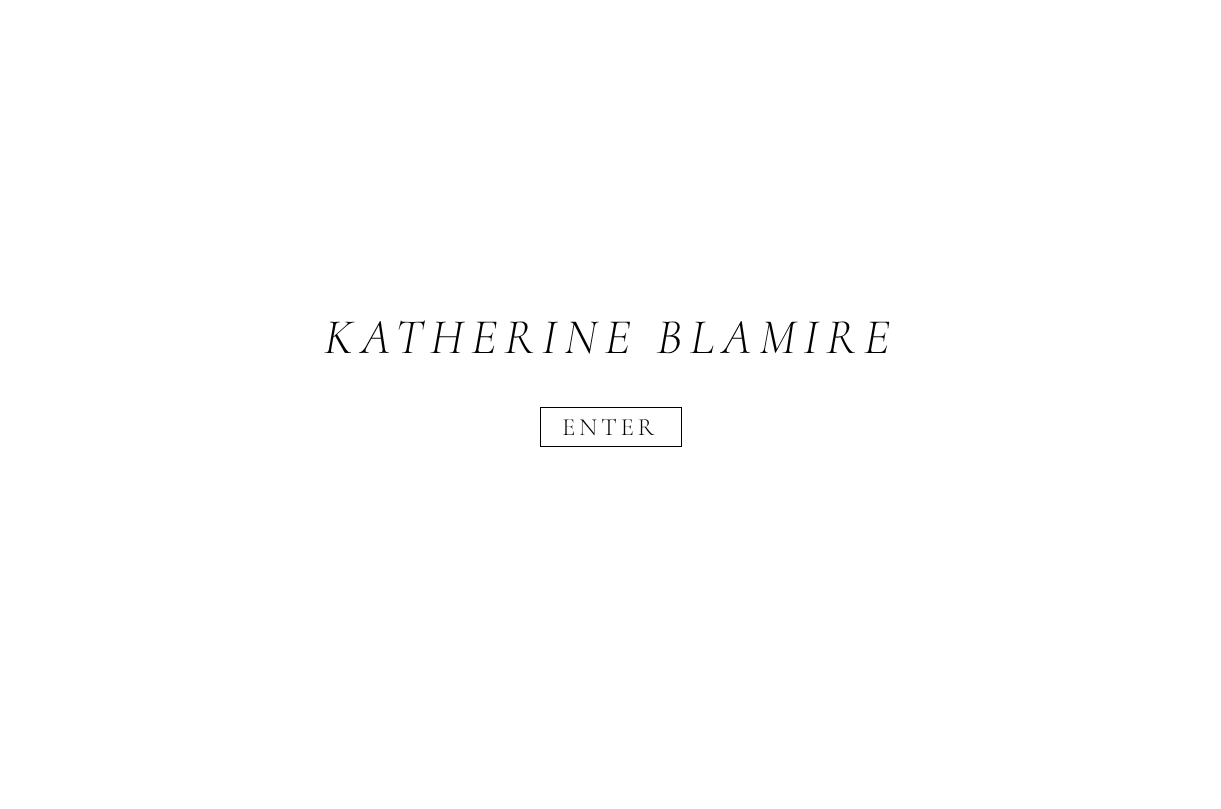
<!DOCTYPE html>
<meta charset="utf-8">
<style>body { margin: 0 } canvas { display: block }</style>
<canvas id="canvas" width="1221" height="809"></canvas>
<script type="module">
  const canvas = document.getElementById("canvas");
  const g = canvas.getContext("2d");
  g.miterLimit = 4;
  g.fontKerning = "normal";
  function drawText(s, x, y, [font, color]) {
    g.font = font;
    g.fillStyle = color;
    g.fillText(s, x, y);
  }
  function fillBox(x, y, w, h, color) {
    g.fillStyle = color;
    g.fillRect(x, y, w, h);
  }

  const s1 = ["italic 300 50px Cormorant Garamond", "#000000"];
  const s2 = ["300 25px Cormorant Garamond", "#000000"];

  fillBox(0, 0, 1221, 809, "#FFFFFF");
  g.letterSpacing = "7.5px";
  drawText("KATHERINE BLAMIRE", 324, 353, s1);
  g.strokeStyle = "#000000";
  g.strokeRect(540.5, 407.5, 141, 39);
  g.letterSpacing = "3.75px";
  drawText("ENTER", 562, 435, s2);
</script>
